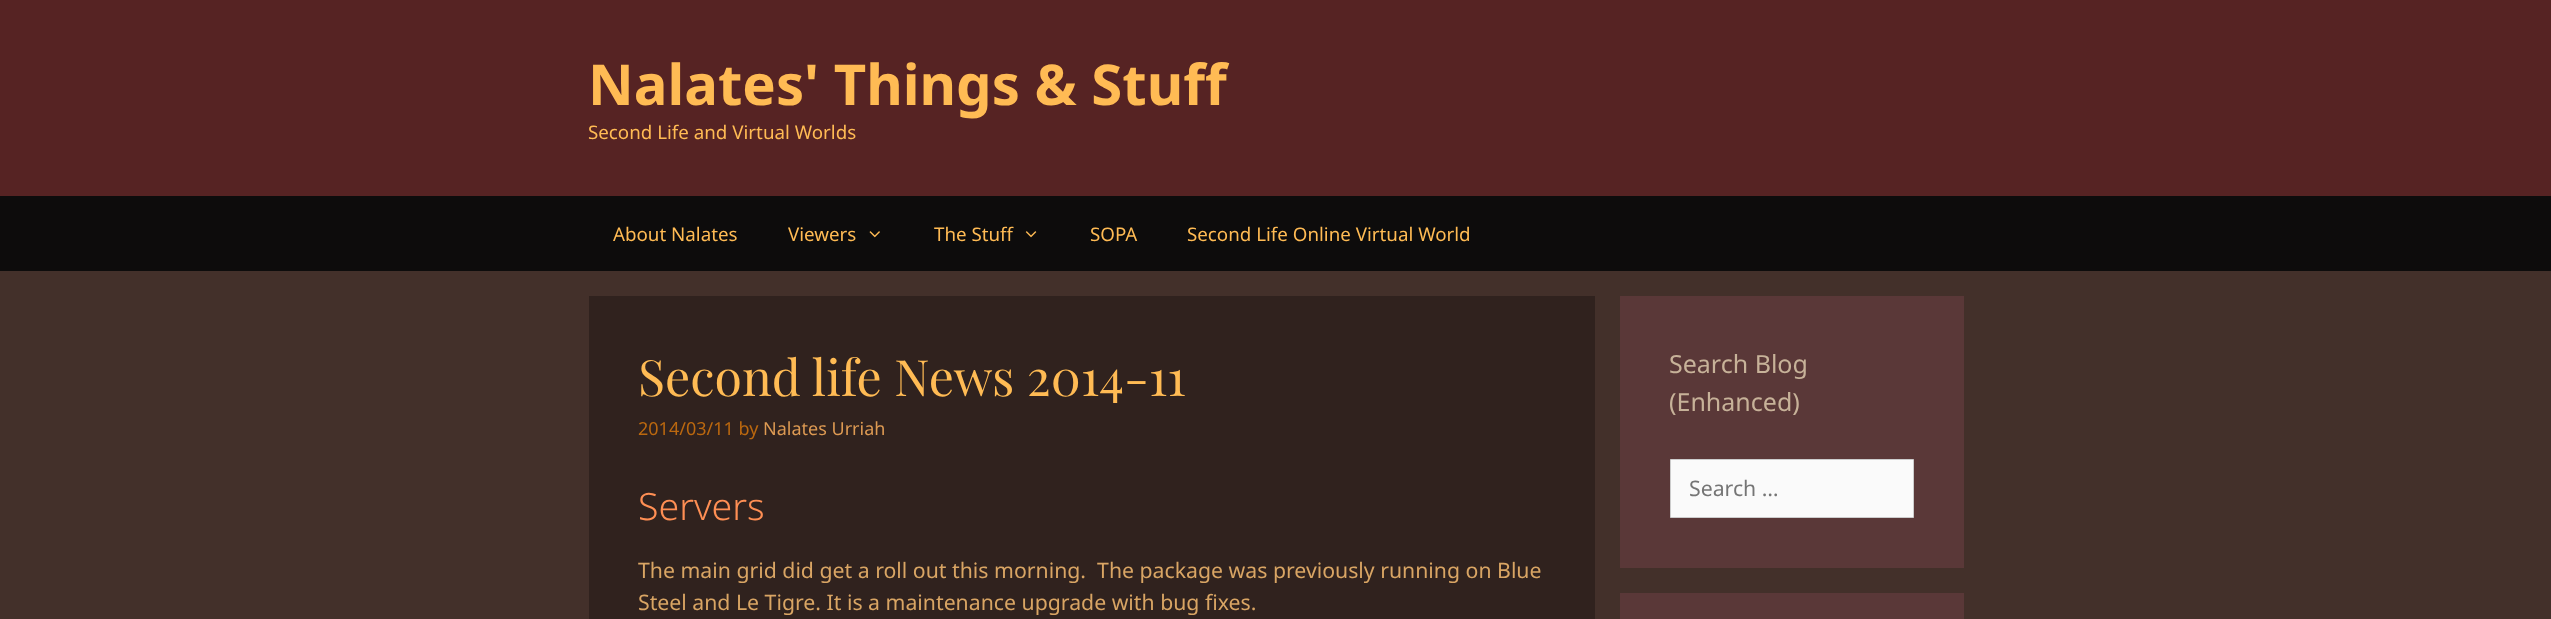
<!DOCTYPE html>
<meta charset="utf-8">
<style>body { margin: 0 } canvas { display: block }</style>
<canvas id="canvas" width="2551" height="619"></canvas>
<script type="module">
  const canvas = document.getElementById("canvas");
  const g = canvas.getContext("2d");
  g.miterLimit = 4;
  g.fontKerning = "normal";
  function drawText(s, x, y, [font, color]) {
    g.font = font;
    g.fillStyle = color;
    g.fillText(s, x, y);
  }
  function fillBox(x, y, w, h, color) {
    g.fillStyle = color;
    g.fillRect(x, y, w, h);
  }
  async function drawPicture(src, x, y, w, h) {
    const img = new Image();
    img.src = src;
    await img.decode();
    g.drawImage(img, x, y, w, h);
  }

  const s1 = ["bold 56.25px Noto Sans", "#FFBB54"];
  const s2 = ["18.75px Noto Sans", "#FFBB54"];
  const s3 = ["50px Playfair Display", "#FFBB54"];
  const s4 = ["18px Noto Sans", "#BB680F"];
  const s5 = ["18px Noto Sans", "#DD9A53"];
  const s6 = ["300 37.5px Noto Sans", "#FF8F54"];
  const s7 = ["21.25px Noto Sans", "#D9A564"];
  const s8 = ["25px Noto Sans", "#C7B299"];
  const s9 = ["21.25px Noto Sans", "#757575"];

  fillBox(0, 0, 2551, 619, "#43302A");
  fillBox(0, 0, 2551, 196, "#562323");
  drawText("Nalates' Things & Stuff", 588, 105, s1);
  drawText("Second Life and Virtual Worlds", 588, 139, s2);
  fillBox(0, 196, 2551, 75, "#0D0C0C");
  drawText("About Nalates", 613, 241, s2);
  drawText("Viewers", 788, 241, s2);
  await drawPicture("pic1.png", 869, 231, 11, 7);
  drawText("The Stuff", 934, 241, s2);
  await drawPicture("pic2.png", 1025, 231, 12, 7);
  drawText("SOPA", 1090, 241, s2);
  drawText("Second Life Online Virtual World", 1187, 241, s2);
  fillBox(589, 296, 1006, 323, "#30221E");
  drawText("Second life News 2014-11", 638, 396, s3);
  drawText("2014/03/11 by", 638, 435, s4);
  drawText("Nalates Urriah", 763, 435, s5);
  drawText("Servers", 638, 520, s6);
  drawText("The main grid did get a roll out this morning.  The package was previously running on Blue", 638, 578, s7);
  drawText("Steel and Le Tigre. It is a maintenance upgrade with bug fixes.", 638, 610, s7);
  fillBox(1620, 296, 344, 272, "#5A3838");
  drawText("Search Blog", 1669, 373, s8);
  drawText("(Enhanced)", 1669, 411, s8);
  g.fillStyle = "#FAFAFA";
  g.beginPath();
  g.rect(1670.5, 459.5, 243, 58);
  g.fill();
  g.strokeStyle = "#CCCCCC";
  g.stroke();
  drawText("Search …", 1689, 496, s9);
  fillBox(1620, 593, 344, 26, "#5A3838");
</script>
